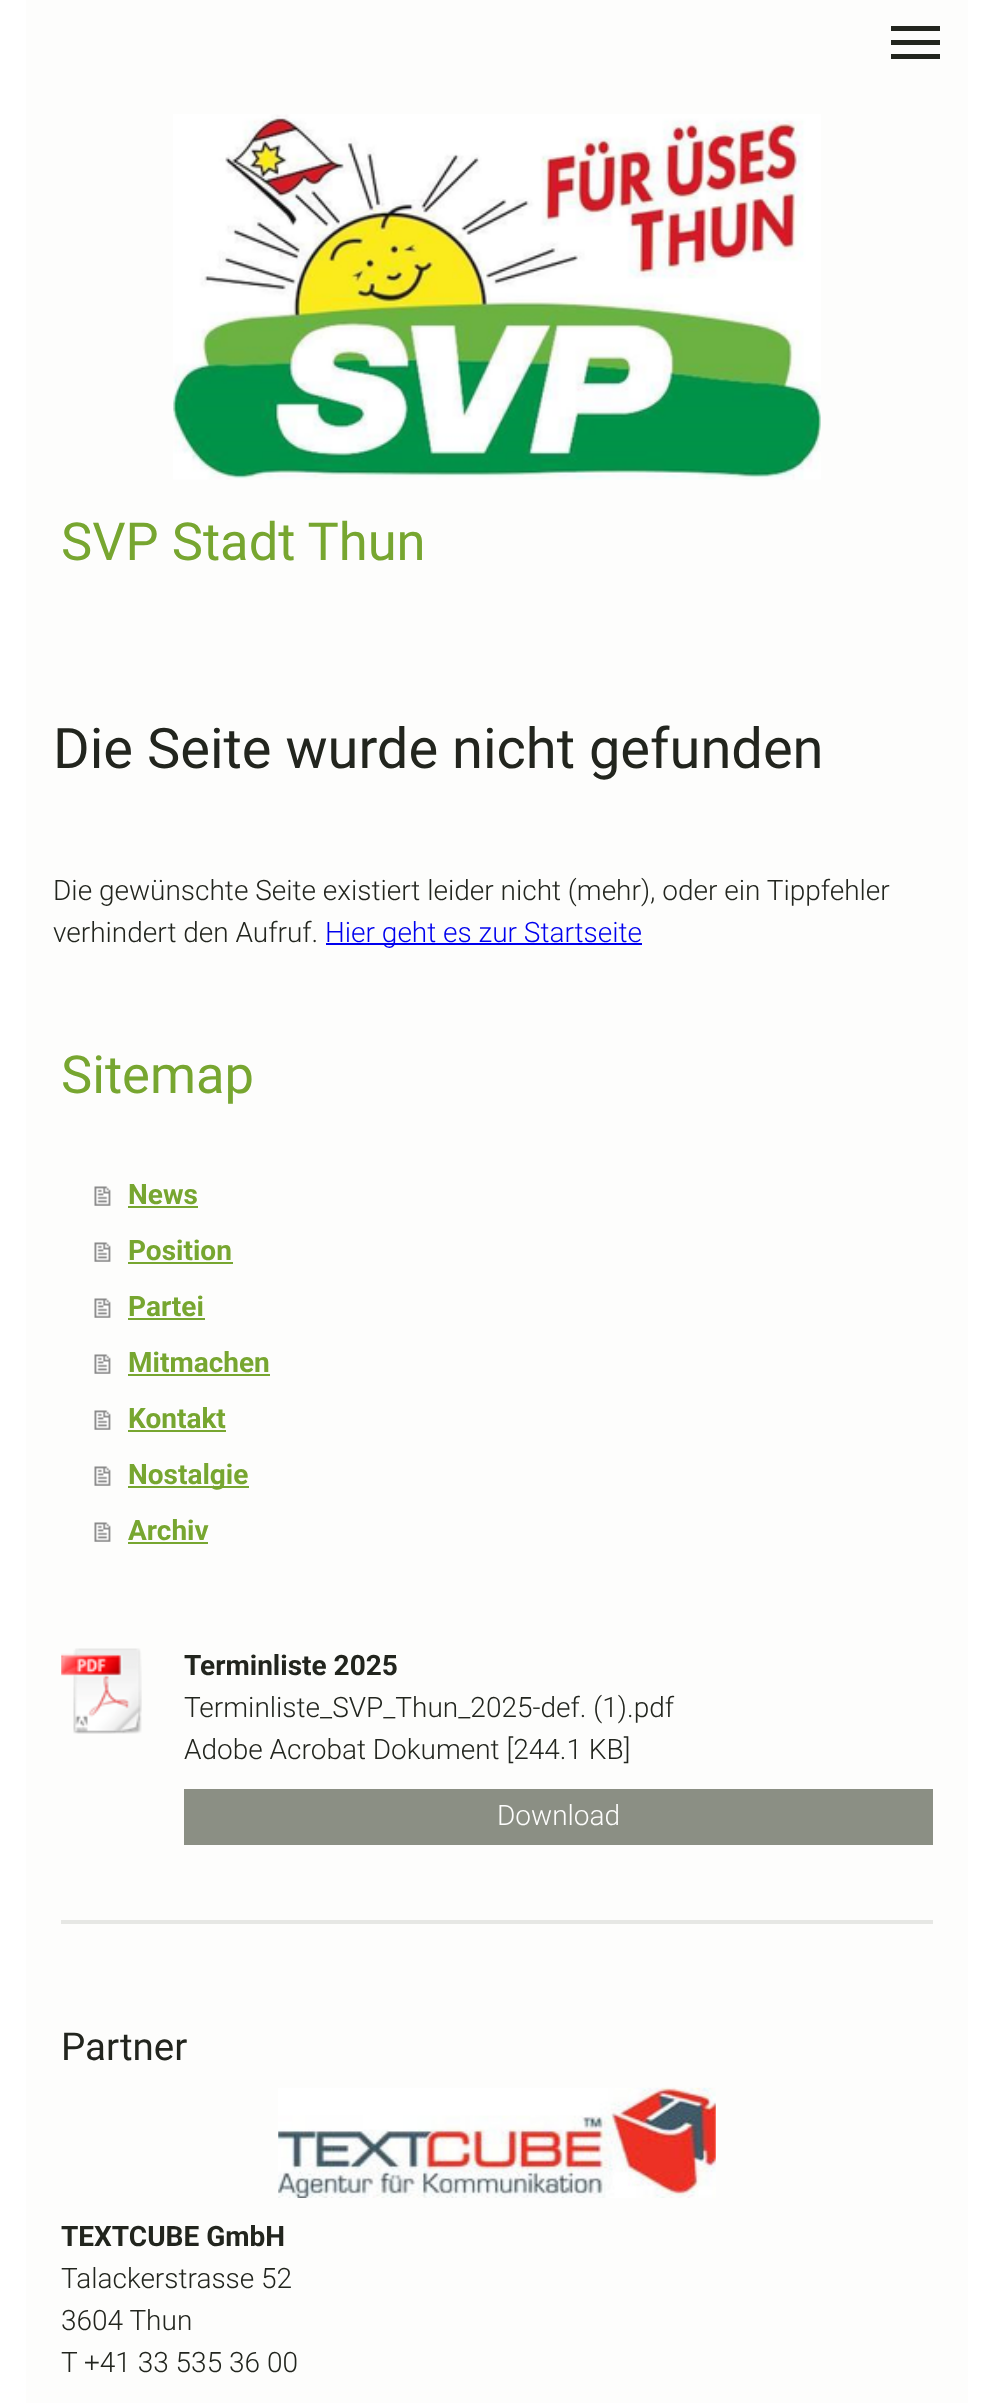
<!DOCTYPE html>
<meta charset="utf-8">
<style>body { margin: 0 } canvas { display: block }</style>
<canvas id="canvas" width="994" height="2403"></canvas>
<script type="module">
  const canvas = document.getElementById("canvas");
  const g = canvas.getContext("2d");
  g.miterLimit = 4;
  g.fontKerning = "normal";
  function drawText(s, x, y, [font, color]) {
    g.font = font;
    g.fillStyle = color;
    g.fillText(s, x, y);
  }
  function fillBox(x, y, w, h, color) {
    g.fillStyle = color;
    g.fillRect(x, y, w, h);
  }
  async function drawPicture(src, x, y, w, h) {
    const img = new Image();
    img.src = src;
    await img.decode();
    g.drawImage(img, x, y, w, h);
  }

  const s1 = ["52.5px Roboto", "#77A630"];
  const s2 = ["56px Roboto", "#22251E"];
  const s3 = ["300 28px Roboto", "#22251E"];
  const s4 = ["300 28px Roboto", "#0000EE"];
  const s5 = ["bold 28px Roboto", "#77A630"];
  const s6 = ["bold 28px Roboto", "#22251E"];
  const s7 = ["300 28px Roboto", "#FDFDFC"];
  const s8 = ["38.5px Roboto", "#22251E"];

  fillBox(0, 0, 994, 2403, "#FFFFFF");
  fillBox(26, 0, 942, 2403, "#FDFDFC");
  fillBox(891, 40, 49, 5, "#22251E");
  fillBox(891, 26, 49, 5, "#22251E");
  fillBox(891, 54, 49, 5, "#22251E");
  await drawPicture("pic1.png", 173, 114, 648, 366);
  drawText("SVP Stadt Thun", 61, 560, s1);
  drawText("Die Seite wurde nicht gefunden", 53, 768, s2);
  drawText("Die gewünschte Seite existiert leider nicht (mehr), oder ein Tippfehler", 53, 900, s3);
  drawText("verhindert den Aufruf.", 53, 942, s3);
  fillBox(326, 943, 316, 2, "#0000EE");
  drawText("Hier geht es zur Startseite", 325, 942, s4);
  drawText("Sitemap", 61, 1093, s1);
  await drawPicture("pic2.png", 94, 1186, 17, 20);
  drawText("News", 128, 1204, s5);
  fillBox(128, 1206, 70, 2, "#77A630");
  await drawPicture("pic2.png", 94, 1242, 17, 20);
  drawText("Position", 128, 1260, s5);
  fillBox(128, 1262, 105, 2, "#77A630");
  await drawPicture("pic2.png", 94, 1298, 17, 20);
  drawText("Partei", 128, 1316, s5);
  fillBox(128, 1318, 77, 2, "#77A630");
  await drawPicture("pic2.png", 94, 1354, 17, 20);
  drawText("Mitmachen", 128, 1372, s5);
  fillBox(128, 1374, 142, 2, "#77A630");
  await drawPicture("pic2.png", 94, 1410, 17, 20);
  drawText("Kontakt", 128, 1428, s5);
  fillBox(128, 1430, 98, 2, "#77A630");
  await drawPicture("pic2.png", 94, 1466, 17, 20);
  fillBox(128, 1486, 121, 2, "#77A630");
  drawText("Nostalgie", 128, 1484, s5);
  await drawPicture("pic2.png", 94, 1522, 17, 20);
  drawText("Archiv", 128, 1540, s5);
  fillBox(128, 1542, 80, 2, "#77A630");
  await drawPicture("pic3.png", 61, 1648, 81, 86);
  drawText("Terminliste 2025", 184, 1675, s6);
  drawText("Terminliste_SVP_Thun_2025-def. (1).pdf", 184, 1717, s3);
  drawText("Adobe Acrobat Dokument [244.1 KB]", 184, 1759, s3);
  fillBox(184, 1789, 749, 56, "#8B8F84");
  drawText("Download", 497, 1825, s7);
  fillBox(61, 1920, 872, 4, "#E6E7E4");
  drawText("Partner", 61, 2060, s8);
  await drawPicture("pic4.png", 278, 2087, 438, 111);
  drawText("TEXTCUBE GmbH", 61, 2246, s6);
  drawText("Talackerstrasse 52", 61, 2288, s3);
  drawText("3604 Thun", 61, 2330, s3);
  drawText("T +41 33 535 36 00", 61, 2372, s3);
</script>
